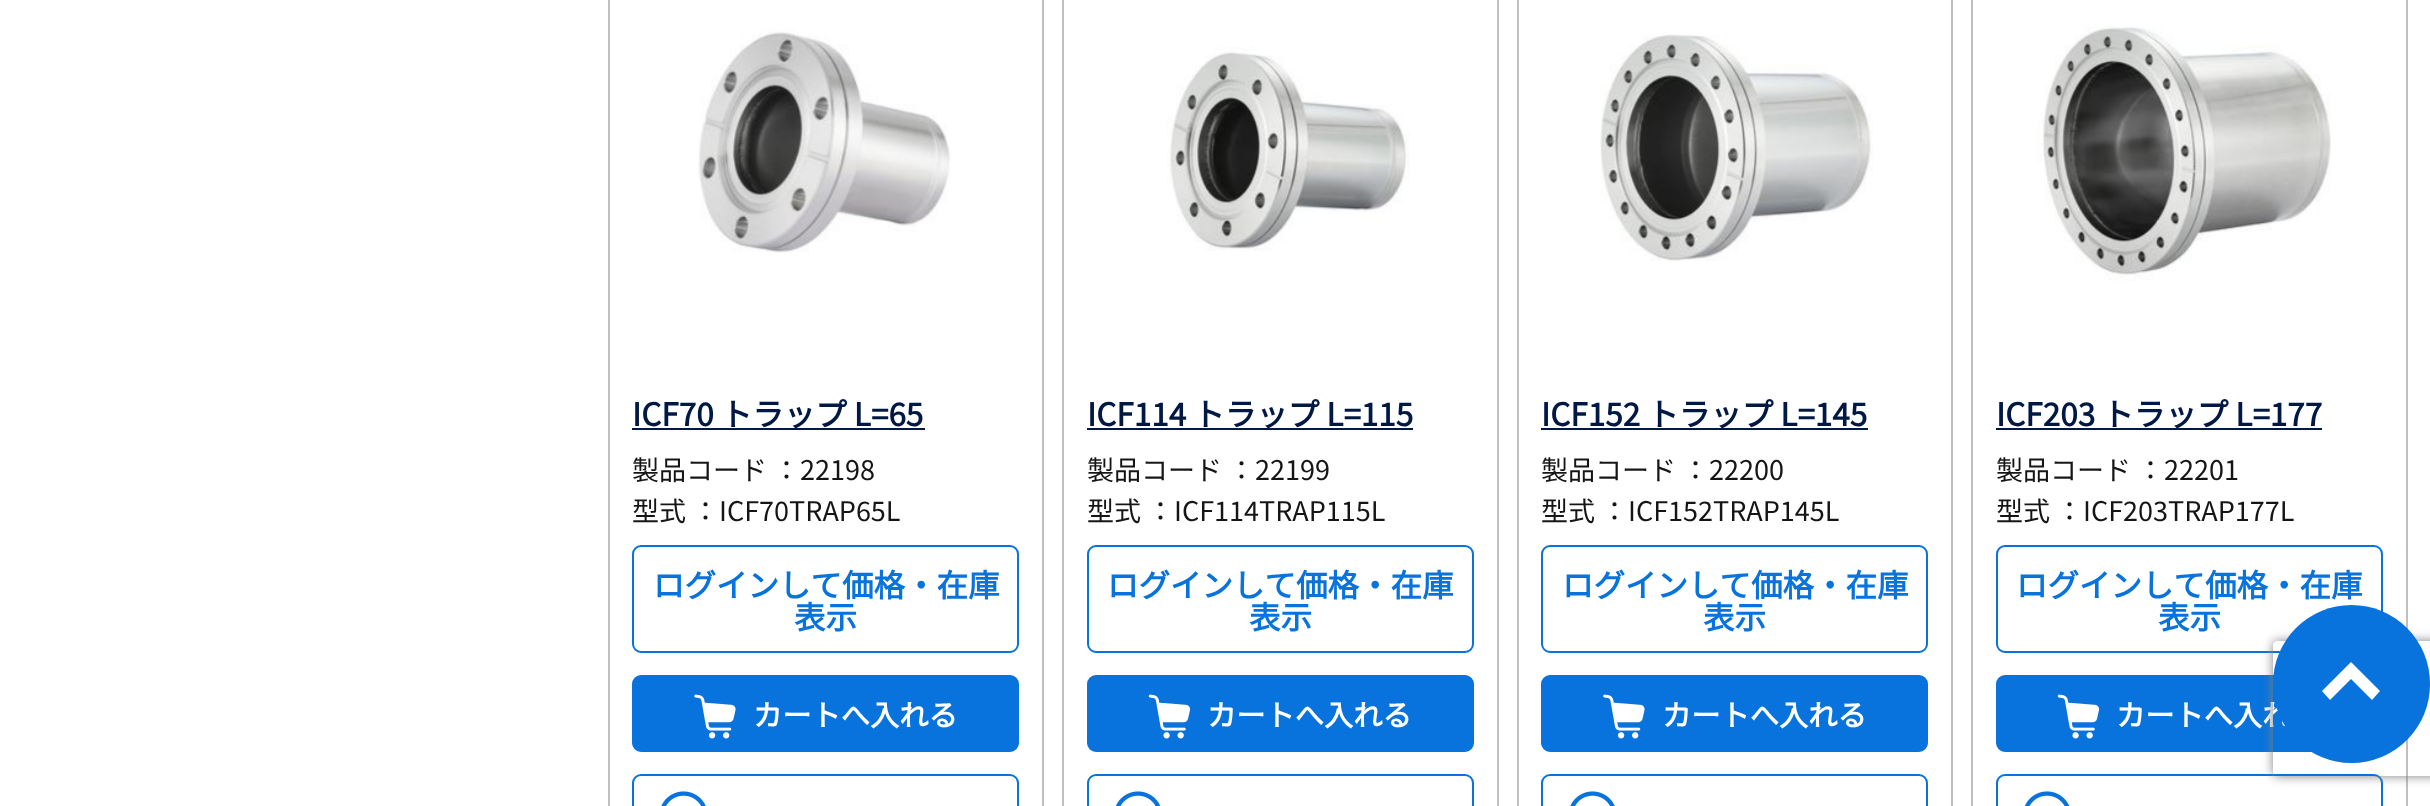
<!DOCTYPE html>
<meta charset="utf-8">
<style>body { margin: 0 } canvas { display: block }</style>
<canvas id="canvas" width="2430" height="806"></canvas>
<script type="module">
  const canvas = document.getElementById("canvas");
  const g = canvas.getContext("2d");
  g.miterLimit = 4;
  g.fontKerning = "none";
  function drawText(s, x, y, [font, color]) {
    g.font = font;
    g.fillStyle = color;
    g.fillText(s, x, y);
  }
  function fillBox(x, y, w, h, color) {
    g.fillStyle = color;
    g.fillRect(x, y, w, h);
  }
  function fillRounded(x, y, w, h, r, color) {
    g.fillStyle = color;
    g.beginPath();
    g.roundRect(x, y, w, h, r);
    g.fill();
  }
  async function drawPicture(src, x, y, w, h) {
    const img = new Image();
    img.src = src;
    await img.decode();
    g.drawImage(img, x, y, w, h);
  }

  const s1 = ["bold 31.5px Noto Sans CJK JP", "#001844"];
  const s2 = ["27px Noto Sans CJK JP", "#151515"];
  const s3 = ["bold 31.5px Noto Sans CJK JP", "#0873DC"];
  const s4 = ["bold 29.25px Noto Sans CJK JP", "#FFFFFF"];

  fillBox(0, 0, 2430, 806, "#FFFFFF");
  g.strokeStyle = "#BFBFBF";
  g.lineWidth = 2;
  g.strokeRect(609, -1, 434, 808);
  await drawPicture("pic1.png", 698, 29, 253, 224);
  fillBox(632, 428, 293, 2, "#001844");
  drawText("ICF70 トラップ L=65", 632, 426, s1);
  drawText("製品コード ：22198", 632, 480, s2);
  drawText("型式 ：ICF70TRAP65L", 632, 521, s2);
  g.beginPath();
  g.roundRect(633, 546, 385, 106, 8);
  g.strokeStyle = "#0873DC";
  g.stroke();
  drawText("ログインして価格・在庫", 653, 597, s3);
  drawText("表示", 794, 629, s3);
  g.beginPath();
  g.roundRect(633, 676, 385, 75, 8);
  g.fill();
  g.stroke();
  await drawPicture("pic2.png", 694, 694, 42, 45);
  drawText("カートへ入れる", 753, 726, s4);
  g.beginPath();
  g.roundRect(633, 775, 385, 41, 8);
  g.stroke();
  await drawPicture("pic3.png", 661, 791, 45, 15);
  g.strokeStyle = "#BFBFBF";
  g.strokeRect(1063, -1, 435, 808);
  await drawPicture("pic4.png", 1166, 46, 244, 205);
  fillBox(1087, 428, 326, 2, "#001844");
  drawText("ICF114 トラップ L=115", 1087, 426, s1);
  drawText("製品コード ：22199", 1087, 480, s2);
  drawText("型式 ：ICF114TRAP115L", 1087, 521, s2);
  g.beginPath();
  g.roundRect(1088, 546, 385, 106, 8);
  g.strokeStyle = "#0873DC";
  g.stroke();
  drawText("ログインして価格・在庫", 1107, 597, s3);
  drawText("表示", 1249, 629, s3);
  g.beginPath();
  g.roundRect(1088, 676, 385, 75, 8);
  g.fill();
  g.stroke();
  await drawPicture("pic5.png", 1148, 694, 43, 45);
  drawText("カートへ入れる", 1207, 726, s4);
  g.beginPath();
  g.roundRect(1088, 775, 385, 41, 8);
  g.stroke();
  await drawPicture("pic6.png", 1115, 791, 46, 15);
  g.strokeStyle = "#BFBFBF";
  g.strokeRect(1518, -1, 434, 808);
  await drawPicture("pic7.png", 1600, 34, 274, 227);
  fillBox(1541, 428, 327, 2, "#001844");
  drawText("ICF152 トラップ L=145", 1541, 426, s1);
  drawText("製品コード ：22200", 1541, 480, s2);
  drawText("型式 ：ICF152TRAP145L", 1541, 521, s2);
  g.beginPath();
  g.roundRect(1542, 546, 385, 106, 8);
  g.strokeStyle = "#0873DC";
  g.stroke();
  drawText("ログインして価格・在庫", 1562, 597, s3);
  drawText("表示", 1703, 629, s3);
  g.beginPath();
  g.roundRect(1542, 676, 385, 75, 8);
  g.fill();
  g.stroke();
  await drawPicture("pic2.png", 1603, 694, 42, 45);
  drawText("カートへ入れる", 1662, 726, s4);
  g.beginPath();
  g.roundRect(1542, 775, 385, 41, 8);
  g.stroke();
  await drawPicture("pic3.png", 1570, 791, 45, 15);
  g.strokeStyle = "#BFBFBF";
  g.strokeRect(1972, -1, 435, 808);
  await drawPicture("pic8.png", 2037, 26, 294, 255);
  fillBox(1996, 428, 326, 2, "#001844");
  drawText("ICF203 トラップ L=177", 1996, 426, s1);
  drawText("製品コード ：22201", 1996, 480, s2);
  drawText("型式 ：ICF203TRAP177L", 1996, 521, s2);
  g.beginPath();
  g.roundRect(1997, 546, 385, 106, 8);
  g.strokeStyle = "#0873DC";
  g.stroke();
  drawText("ログインして価格・在庫", 2016, 597, s3);
  drawText("表示", 2158, 629, s3);
  g.beginPath();
  g.roundRect(1997, 676, 385, 75, 8);
  g.fill();
  g.stroke();
  await drawPicture("pic5.png", 2057, 694, 43, 45);
  drawText("カートへ入れ", 2116, 726, s4);
  g.beginPath();
  g.roundRect(1997, 775, 385, 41, 8);
  g.stroke();
  await drawPicture("pic6.png", 2024, 791, 46, 15);
  g.save();
  g.beginPath();
  g.moveTo(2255, 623);
  g.lineTo(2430, 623);
  g.lineTo(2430, 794);
  g.lineTo(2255, 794);
  g.closePath();
  g.moveTo(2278, 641);
  g.lineTo(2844, 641);
  g.bezierCurveTo(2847, 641, 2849, 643, 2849, 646);
  g.lineTo(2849, 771);
  g.bezierCurveTo(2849, 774, 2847, 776, 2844, 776);
  g.lineTo(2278, 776);
  g.bezierCurveTo(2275, 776, 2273, 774, 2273, 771);
  g.lineTo(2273, 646);
  g.bezierCurveTo(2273, 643, 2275, 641, 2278, 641);
  g.closePath();
  g.clip("evenodd");
  g.fillStyle = "#808080";
  g.filter = "blur(5.5px)";
  g.beginPath();
  g.roundRect(2273, 641, 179, 135, 5);
  g.fill();
  g.filter = "none";
  g.restore();
  fillRounded(2273, 605, 157, 158, 78.5, "#0873DC");
  g.fillStyle = "#FFFFFF";
  g.beginPath();
  g.moveTo(2351, 662);
  g.lineTo(2322, 691);
  g.lineTo(2330, 700);
  g.lineTo(2351, 679);
  g.lineTo(2372, 700);
  g.lineTo(2380, 691);
  g.closePath();
  g.fill();
</script>
